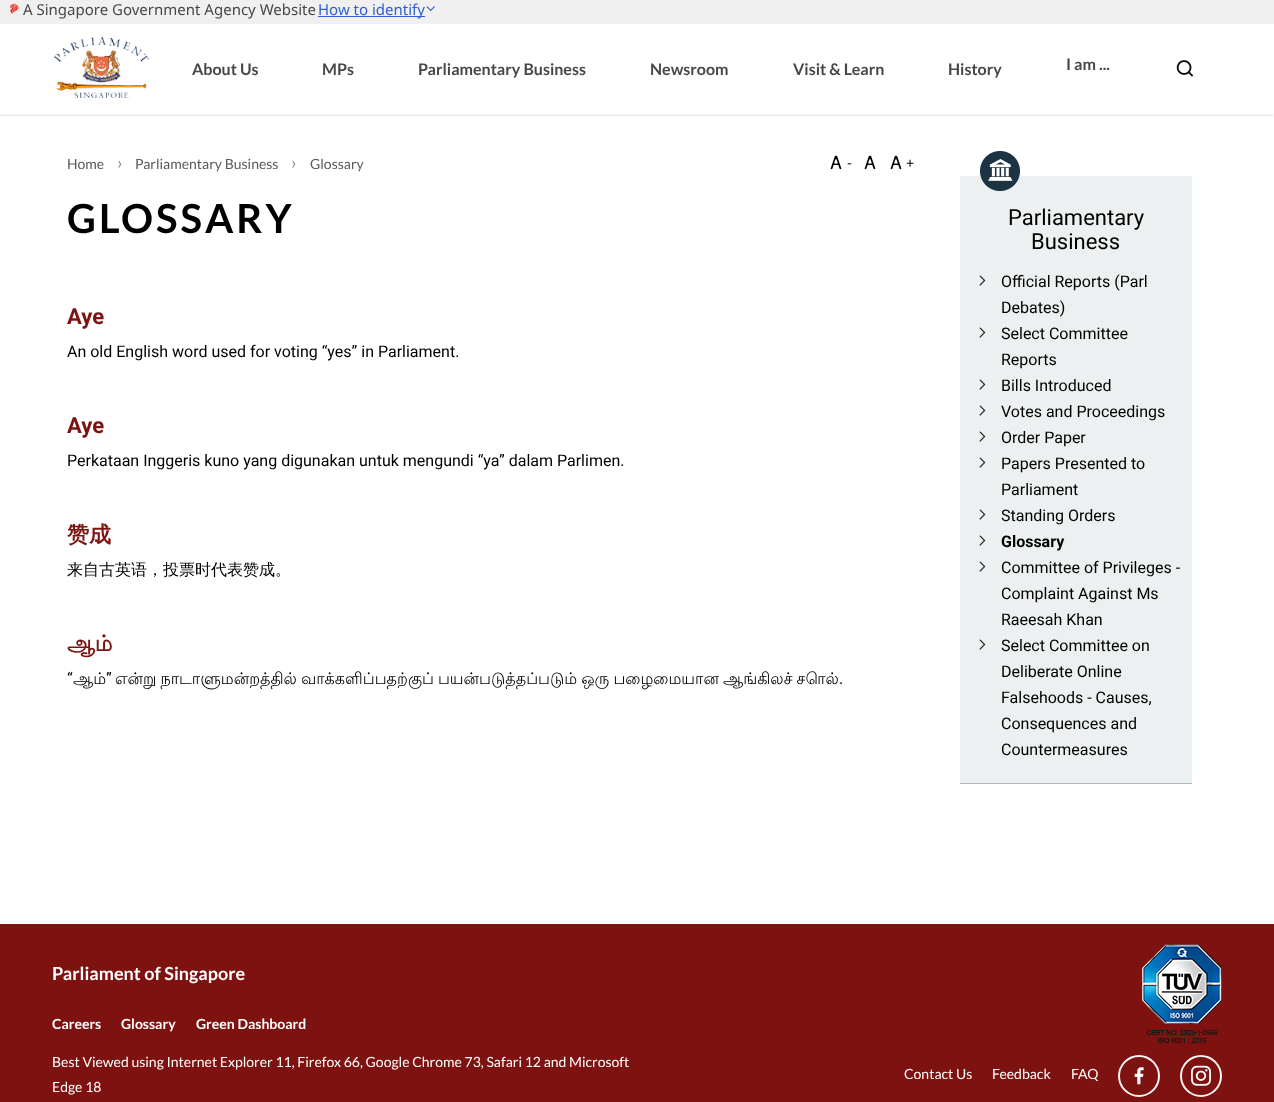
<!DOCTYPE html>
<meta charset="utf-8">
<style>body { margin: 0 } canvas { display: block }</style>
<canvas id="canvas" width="1274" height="1102"></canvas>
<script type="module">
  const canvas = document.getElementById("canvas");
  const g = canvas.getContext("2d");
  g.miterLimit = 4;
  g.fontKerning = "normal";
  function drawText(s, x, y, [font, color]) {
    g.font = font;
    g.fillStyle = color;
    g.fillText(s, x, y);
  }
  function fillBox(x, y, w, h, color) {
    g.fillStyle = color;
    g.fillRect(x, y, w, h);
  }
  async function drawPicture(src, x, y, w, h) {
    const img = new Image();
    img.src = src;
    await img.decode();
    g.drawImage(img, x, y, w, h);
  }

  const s1 = ["15px Noto Sans", "#474747"];
  const s2 = ["15px Noto Sans", "#2F5FD0"];
  const s3 = ["bold 16px Lato", "#474747"];
  const s4 = ["14px Lato", "#595959"];
  const s5 = ["18px Lato", "#7F8C8D"];
  const s6 = ["14px Lato", "#000000"];
  const s7 = ["bold 40px Lato", "#000000"];
  const s8 = ["bold 22px Roboto", "#7D1211"];
  const s9 = ["16px Roboto", "#000000"];
  const s10 = ["bold 22px WenQuanYi Zen Hei", "#7D1211"];
  const s11 = ["500 16px WenQuanYi Zen Hei", "#000000"];
  const s12 = ["bold 22px Lohit Tamil", "#7D1211"];
  const s13 = ["16px Lohit Tamil", "#000000"];
  const s14 = ["22px Roboto", "#000000"];
  const s15 = ["bold 16px Roboto", "#000000"];
  const s16 = ["bold 18px Lato", "#FFFFFF"];
  const s17 = ["bold 14px Lato", "#FFFFFF"];
  const s18 = ["14px Lato", "#FFFFFF"];

  fillBox(0, 0, 1274, 1102, "#FFFFFF");
  fillBox(0, 0, 1274, 24, "#F0F0F0");
  await drawPicture("pic1.png", 10, 3, 9, 11);
  drawText("A Singapore Government Agency Website", 23, 15, s1);
  fillBox(318, 16, 107, 1, "#2F5FD0");
  drawText("How to identify", 318, 15, s2);
  await drawPicture("pic2.png", 426, 6, 9, 6);
  g.save();
  g.beginPath();
  g.rect(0, 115, 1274, 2);
  g.clip();
  g.fillStyle = "rgba(10, 10, 10, 0.1)";
  g.filter = "blur(1px)";
  g.beginPath();
  g.rect(0, 25, 1274, 91);
  g.fill();
  g.filter = "none";
  g.restore();
  fillBox(0, 114, 1274, 1, "#F5F5F5");
  await drawPicture("pic3.png", 53, 37, 96, 61);
  drawText("About Us", 192, 75, s3);
  drawText("MPs", 322, 75, s3);
  drawText("Parliamentary Business", 418, 75, s3);
  drawText("Newsroom", 650, 75, s3);
  drawText("Visit & Learn", 793, 75, s3);
  drawText("History", 948, 75, s3);
  drawText("I am ...", 1066, 70, s3);
  await drawPicture("pic4.png", 1176, 60, 18, 17);
  drawText("Home", 67, 169, s4);
  drawText("›", 117, 169, s5);
  drawText("Parliamentary Business", 135, 169, s4);
  drawText("›", 291, 169, s5);
  drawText("Glossary", 310, 169, s4);
  await drawPicture("pic5.png", 830, 155, 12, 15);
  drawText("-", 847, 168, s6);
  await drawPicture("pic5.png", 864, 155, 12, 15);
  await drawPicture("pic5.png", 890, 155, 12, 15);
  drawText("+", 906, 168, s6);
  g.letterSpacing = "3px";
  drawText("GLOSSARY", 67, 233, s7);
  g.letterSpacing = "0px";
  drawText("Aye", 67, 324, s8);
  drawText("An old English word used for voting “yes” in Parliament.", 67, 357, s9);
  drawText("Aye", 67, 433, s8);
  drawText("Perkataan Inggeris kuno yang digunakan untuk mengundi “ya” dalam Parlimen.", 67, 466, s9);
  drawText("赞成", 67, 542, s10);
  drawText("来自古英语，投票时代表赞成。", 67, 575, s11);
  drawText("ஆம்", 67, 651, s12);
  drawText("“", 67, 684, s9);
  drawText("ஆம்", 73, 684, s13);
  drawText("”", 106, 684, s9);
  g.wordSpacing = "-0.75px";
  drawText("என்று நாடாளுமன்றத்தில் வாக்களிப்பதற்குப் பயன்படுத்தப்படும் ஒரு பழைமையான ஆங்கிலச் சொல்", 115, 684, s13);
  g.wordSpacing = "0px";
  drawText(".", 839, 684, s9);
  fillBox(960, 176, 232, 607, "#ECF0F1");
  await drawPicture("pic6.png", 980, 151, 40, 40);
  fillBox(960, 783, 232, 1, "#ADB7BD");
  drawText("Parliamentary", 1008, 225, s14);
  drawText("Business", 1031, 249, s14);
  await drawPicture("pic7.png", 979, 275, 7, 11);
  drawText("Official Reports (Parl", 1001, 287, s9);
  drawText("Debates)", 1001, 313, s9);
  await drawPicture("pic7.png", 979, 327, 7, 11);
  drawText("Select Committee", 1001, 339, s9);
  drawText("Reports", 1001, 365, s9);
  await drawPicture("pic7.png", 979, 379, 7, 11);
  drawText("Bills Introduced", 1001, 391, s9);
  await drawPicture("pic7.png", 979, 405, 7, 11);
  drawText("Votes and Proceedings", 1001, 417, s9);
  await drawPicture("pic7.png", 979, 431, 7, 11);
  drawText("Order Paper", 1001, 443, s9);
  await drawPicture("pic7.png", 979, 457, 7, 11);
  drawText("Papers Presented to", 1001, 469, s9);
  drawText("Parliament", 1001, 495, s9);
  await drawPicture("pic7.png", 979, 509, 7, 11);
  drawText("Standing Orders", 1001, 521, s9);
  await drawPicture("pic7.png", 979, 535, 7, 11);
  drawText("Glossary", 1001, 547, s15);
  await drawPicture("pic7.png", 979, 561, 7, 11);
  drawText("Committee of Privileges -", 1001, 573, s9);
  drawText("Complaint Against Ms", 1001, 599, s9);
  drawText("Raeesah Khan", 1001, 625, s9);
  await drawPicture("pic7.png", 979, 639, 7, 11);
  drawText("Select Committee on", 1001, 651, s9);
  drawText("Deliberate Online", 1001, 677, s9);
  drawText("Falsehoods - Causes,", 1001, 703, s9);
  drawText("Consequences and", 1001, 729, s9);
  drawText("Countermeasures", 1001, 755, s9);
  fillBox(0, 924, 1274, 178, "#7D1211");
  drawText("Parliament of Singapore", 52, 980, s16);
  drawText("Careers", 52, 1029, s17);
  drawText("Glossary", 121, 1029, s17);
  drawText("Green Dashboard", 196, 1029, s17);
  await drawPicture("pic8.png", 1142, 944, 80, 100);
  drawText("Best Viewed using Internet Explorer 11, Firefox 66, Google Chrome 73, Safari 12 and Microsoft", 52, 1067, s18);
  drawText("Edge 18", 52, 1092, s18);
  drawText("Contact Us", 904, 1079, s18);
  drawText("Feedback", 992, 1079, s18);
  drawText("FAQ", 1071, 1079, s18);
  g.beginPath();
  g.arc(1139, 1076, 20, 0, Math.PI * 2);
  g.strokeStyle = "#F5F5F5";
  g.lineWidth = 2;
  g.stroke();
  await drawPicture("pic9.png", 1134, 1067, 10, 18);
  g.beginPath();
  g.arc(1201, 1076, 20, 0, Math.PI * 2);
  g.stroke();
  await drawPicture("pic10.png", 1191, 1065, 20, 21);
</script>
